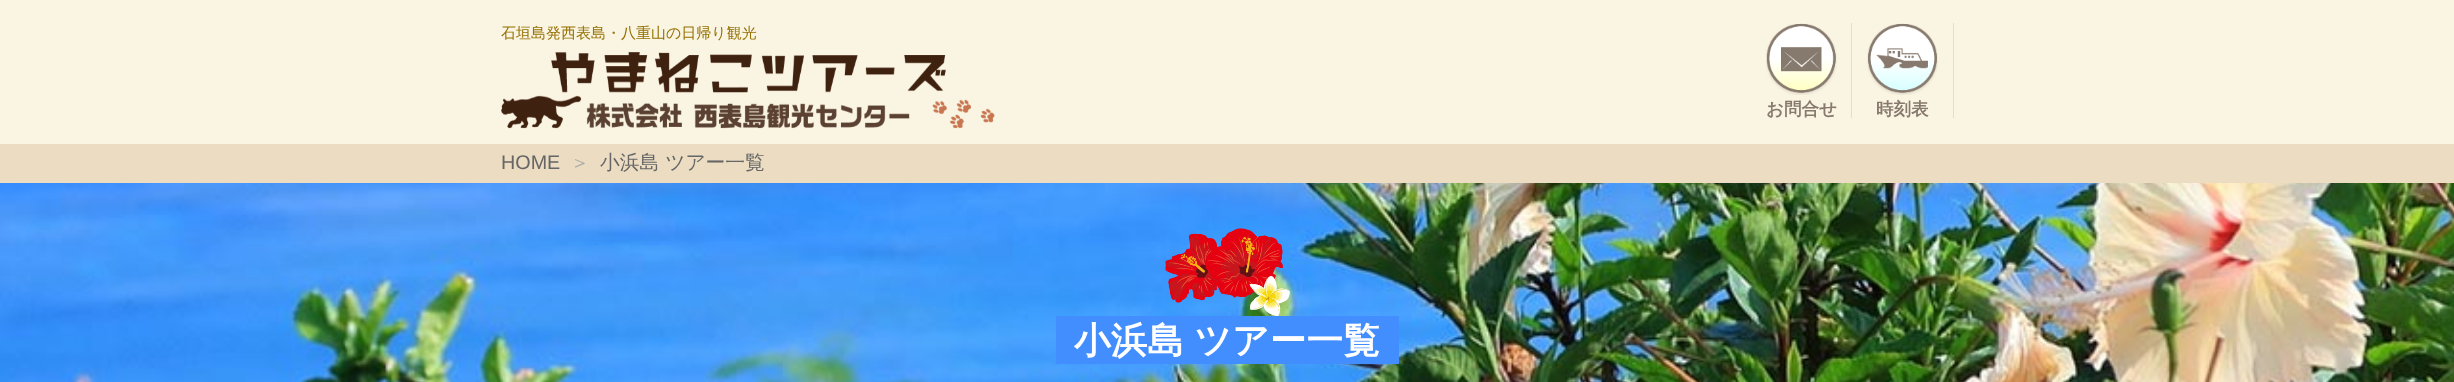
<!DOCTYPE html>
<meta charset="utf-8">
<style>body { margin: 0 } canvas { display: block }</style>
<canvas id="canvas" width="2454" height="382"></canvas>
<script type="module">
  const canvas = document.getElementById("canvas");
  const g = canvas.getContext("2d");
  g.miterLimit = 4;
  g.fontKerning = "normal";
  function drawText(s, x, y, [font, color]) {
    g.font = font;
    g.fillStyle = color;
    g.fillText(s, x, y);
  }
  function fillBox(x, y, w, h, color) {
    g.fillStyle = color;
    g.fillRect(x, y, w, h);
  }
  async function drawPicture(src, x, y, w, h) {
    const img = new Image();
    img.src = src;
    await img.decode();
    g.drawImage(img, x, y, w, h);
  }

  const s1 = ["500 15px WenQuanYi Zen Hei", "#957000"];
  const s2 = ["bold 17.5px WenQuanYi Zen Hei", "#87796E"];
  const s3 = ["19.75px Liberation Sans", "#666666"];
  const s4 = ["500 19.75px WenQuanYi Zen Hei", "#AAAAAA"];
  const s5 = ["500 19.75px WenQuanYi Zen Hei", "#666666"];
  const s6 = ["bold 36.5px WenQuanYi Zen Hei", "#FFFFFF"];

  fillBox(0, 0, 2454, 382, "#FAF4E2");
  drawText("石垣島発西表島・八重山の日帰り観光", 501, 38, s1);
  await drawPicture("pic1.png", 501, 52, 494, 77);
  fillBox(1851, 23, 1, 95, "#DDDDDD");
  await drawPicture("pic2.png", 1766, 23, 71, 72);
  drawText("お問合せ", 1766, 115, s2);
  fillBox(1953, 23, 1, 95, "#DDDDDD");
  await drawPicture("pic3.png", 1867, 23, 71, 72);
  drawText("時刻表", 1876, 115, s2);
  fillBox(0, 144, 2454, 39, "#EBDCC2");
  drawText("HOME", 501, 169, s3);
  drawText("＞", 570, 169, s4);
  drawText("小浜島 ツアー一覧", 600, 169, s5);
  await drawPicture("pic4.png", 0, 183, 2454, 199);
  await drawPicture("pic5.png", 1165, 228, 125, 88);
  fillBox(1056, 316, 343, 48, "#438EFF");
  g.letterSpacing = "0.25px";
  g.wordSpacing = "-1px";
  drawText("小浜島 ツアー一覧", 1074, 353, s6);
</script>
